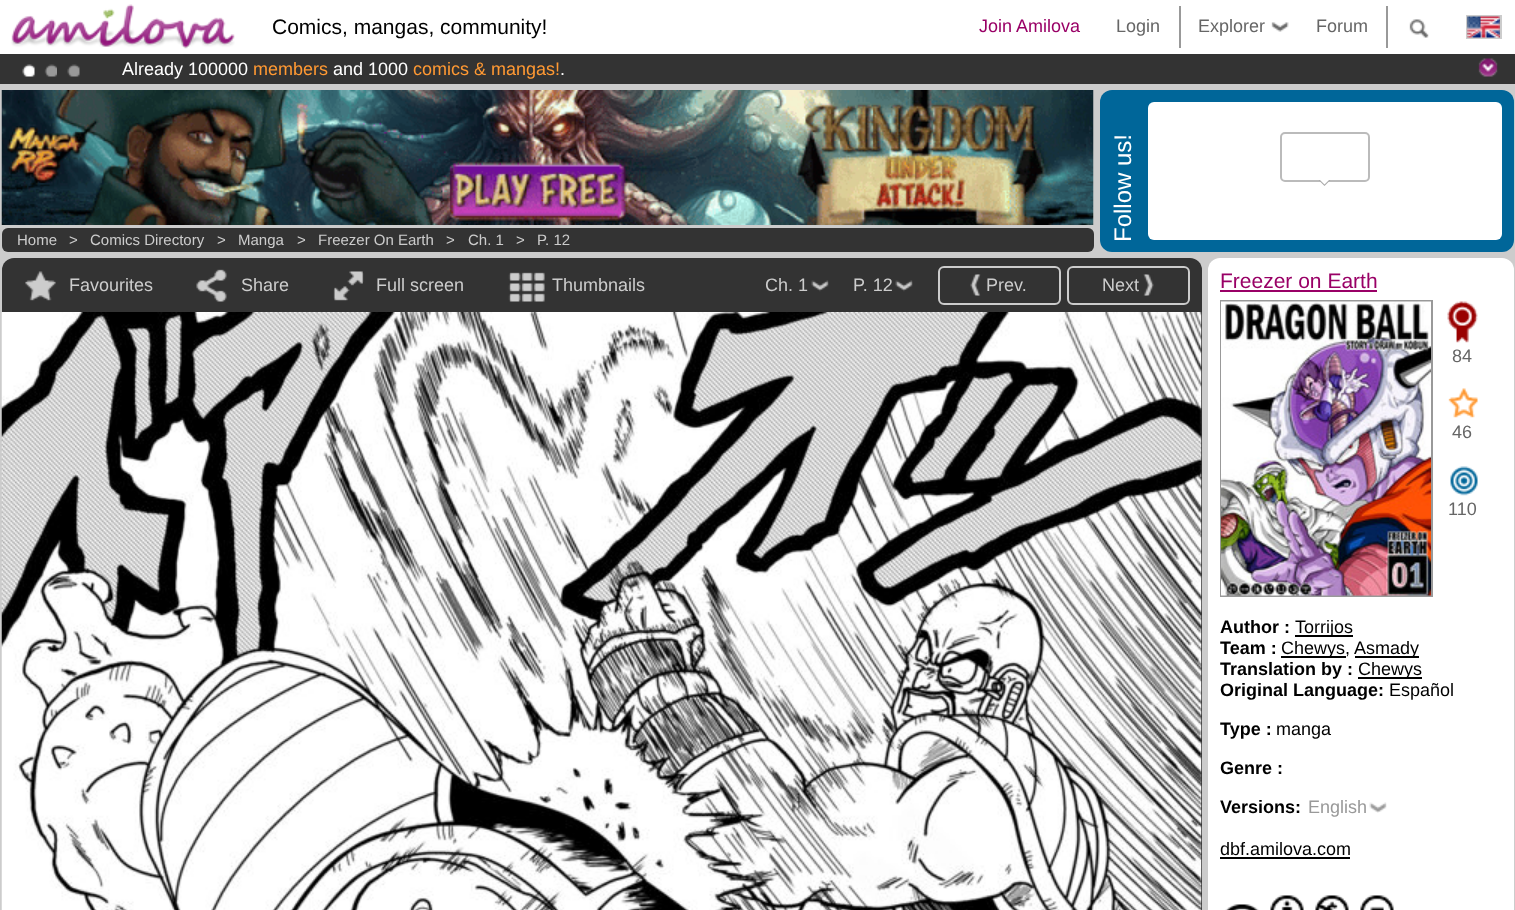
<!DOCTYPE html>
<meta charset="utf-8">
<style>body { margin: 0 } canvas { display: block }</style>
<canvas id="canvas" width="1515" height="910"></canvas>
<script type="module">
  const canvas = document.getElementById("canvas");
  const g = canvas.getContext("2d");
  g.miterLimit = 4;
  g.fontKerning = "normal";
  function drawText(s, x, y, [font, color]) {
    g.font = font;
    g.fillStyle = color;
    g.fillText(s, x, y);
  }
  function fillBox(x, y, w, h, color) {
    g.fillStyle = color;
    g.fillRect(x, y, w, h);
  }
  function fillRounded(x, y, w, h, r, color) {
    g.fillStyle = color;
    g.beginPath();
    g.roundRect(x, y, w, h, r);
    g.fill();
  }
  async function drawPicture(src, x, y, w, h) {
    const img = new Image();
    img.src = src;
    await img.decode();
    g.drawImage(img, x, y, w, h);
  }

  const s1 = ["21px Liberation Sans", "#000000"];
  const s2 = ["18px Liberation Sans", "#990066"];
  const s3 = ["18px Liberation Sans", "#666666"];
  const s4 = ["18px Liberation Sans", "#FFFFFF"];
  const s5 = ["18px Liberation Sans", "#FF9933"];
  const s6 = ["15px Liberation Sans", "#CCCCCC"];
  const s7 = ["18px Liberation Sans", "#CCCCCC"];
  const s8 = ["21px Liberation Sans", "#990066"];
  const s9 = ["bold 18px Liberation Sans", "#000000"];
  const s10 = ["18px Liberation Sans", "#000000"];
  const s11 = ["18px Liberation Sans", "#999999"];

  fillBox(0, 0, 1515, 910, "#CCCCCC");
  fillBox(0, 0, 1515, 54, "#FFFFFF");
  await drawPicture("pic1.png", 11, 4, 224, 45);
  drawText("Comics, mangas, community!", 272, 34, s1);
  drawText("Join Amilova", 979, 32, s2);
  drawText("Login", 1116, 32, s3);
  fillBox(1179, 6, 2, 42, "#999999");
  drawText("Explorer", 1198, 32, s3);
  await drawPicture("pic2.png", 1271, 22, 18, 10);
  drawText("Forum", 1316, 32, s3);
  fillBox(1386, 6, 2, 42, "#999999");
  await drawPicture("pic3.png", 1409, 19, 20, 19);
  g.strokeStyle = "#CCCCCC";
  g.lineWidth = 2;
  g.strokeRect(1467, 16, 34, 22);
  await drawPicture("pic4.png", 1467, 16, 33, 22);
  fillBox(0, 54, 1515, 30, "#333333");
  await drawPicture("pic5.png", 22, 64, 13, 13);
  await drawPicture("pic6.png", 44, 64, 13, 13);
  await drawPicture("pic7.png", 67, 64, 13, 13);
  drawText("Already 100000", 122, 75, s4);
  drawText("members", 253, 75, s5);
  drawText("and 1000", 333, 75, s4);
  drawText("comics & mangas!", 413, 75, s5);
  drawText(".", 560, 75, s4);
  await drawPicture("pic8.png", 1478, 58, 20, 19);
  await drawPicture("pic9.png", 1, 90, 1093, 135);
  fillRounded(1100, 90, 414, 162, 12, "#006699");
  g.font = "24px Liberation Sans";
  g.fillStyle = "#FFFFFF";
  g.save();
  g.translate(1131, 242);
  g.rotate(-90 * Math.PI / 180);
  g.fillText("Follow us!", 0, 0);
  g.restore();
  fillRounded(1148, 102, 354, 138, 6, "#FFFFFF");
  g.beginPath();
  g.roundRect(1281, 133, 88, 48, 4);
  g.strokeStyle = "#BBBBBB";
  g.stroke();
  g.fillStyle = "#AAAAAA";
  g.beginPath();
  g.moveTo(1318.5, 180);
  g.lineTo(1330.5, 180);
  g.lineTo(1324.5, 186);
  g.closePath();
  g.fill();
  g.fillStyle = "#FFFFFF";
  g.beginPath();
  g.moveTo(1320, 180);
  g.lineTo(1329, 180);
  g.lineTo(1324.5, 184.5);
  g.closePath();
  g.fill();
  fillRounded(2, 228, 1092, 24, 6, "#333333");
  drawText("Home", 17, 245, s6);
  drawText(">", 69, 245, s6);
  drawText("Comics Directory", 90, 245, s6);
  drawText(">", 217, 245, s6);
  drawText("Manga", 238, 245, s6);
  drawText(">", 297, 245, s6);
  drawText("Freezer On Earth", 318, 245, s6);
  drawText(">", 446, 245, s6);
  drawText("Ch. 1", 468, 245, s6);
  drawText(">", 516, 245, s6);
  drawText("P. 12", 537, 245, s6);
  fillRounded(2, 258, 1200, 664, 12, "#333333");
  await drawPicture("pic10.png", 25, 271, 31, 30);
  drawText("Favourites", 69, 291, s7);
  await drawPicture("pic11.png", 196, 269, 31, 33);
  drawText("Share", 241, 291, s7);
  await drawPicture("pic12.png", 333, 271, 31, 30);
  drawText("Full screen", 376, 291, s7);
  await drawPicture("pic13.png", 508, 272, 37, 30);
  drawText("Thumbnails", 552, 291, s7);
  await drawPicture("pic14.png", 811, 280, 18, 12);
  drawText("Ch. 1", 765, 291, s7);
  await drawPicture("pic14.png", 895, 280, 18, 12);
  drawText("P. 12", 853, 291, s7);
  g.beginPath();
  g.roundRect(939, 267, 121, 37, 5);
  g.strokeStyle = "#CCCCCC";
  g.stroke();
  await drawPicture("pic15.png", 970, 274, 11, 22);
  drawText("Prev.", 986, 291, s7);
  g.beginPath();
  g.roundRect(1068, 267, 121, 37, 5);
  g.stroke();
  drawText("Next", 1102, 291, s7);
  await drawPicture("pic16.png", 1143, 274, 11, 22);
  await drawPicture("pic17.png", 1, 312, 1201, 598);
  fillRounded(1208, 258, 306, 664, 12, "#FFFFFF");
  drawText("Freezer on Earth", 1220, 288, s8);
  fillBox(1220, 290, 157, 2, "#990066");
  g.strokeStyle = "#999999";
  g.strokeRect(1221, 301, 211, 295);
  await drawPicture("pic18.png", 1221, 301, 210, 295);
  await drawPicture("pic19.png", 1447, 301, 31, 42);
  drawText("84", 1452, 362, s3);
  await drawPicture("pic20.png", 1448, 388, 30, 30);
  drawText("46", 1452, 438, s3);
  await drawPicture("pic21.png", 1450, 466, 28, 30);
  drawText("110", 1448, 515, s3);
  drawText("Author :", 1220, 633, s9);
  fillBox(1295, 635, 58, 2, "#000000");
  drawText("Torrijos", 1295, 633, s10);
  drawText("Team :", 1220, 654, s9);
  fillBox(1281, 656, 65, 2, "#000000");
  drawText("Chewys,", 1281, 654, s10);
  fillBox(1355, 656, 64, 2, "#000000");
  drawText("Asmady", 1354, 654, s10);
  drawText("Translation by :", 1220, 675, s9);
  fillBox(1358, 677, 64, 2, "#000000");
  drawText("Chewys", 1358, 675, s10);
  drawText("Original Language:", 1220, 696, s9);
  drawText("Español", 1389, 696, s10);
  drawText("Type :", 1220, 735, s9);
  drawText("manga", 1276, 735, s10);
  drawText("Genre :", 1220, 774, s9);
  drawText("Versions:", 1220, 813, s9);
  drawText("English", 1308, 813, s11);
  await drawPicture("pic22.png", 1369, 802, 18, 11);
  drawText("dbf.amilova.com", 1220, 855, s10);
  fillBox(1220, 857, 130, 2, "#000000");
  await drawPicture("pic23.png", 1225, 904, 34, 6);
  await drawPicture("pic24.png", 1270, 895, 34, 15);
  await drawPicture("pic25.png", 1315, 895, 34, 15);
  await drawPicture("pic26.png", 1360, 895, 34, 15);
</script>
